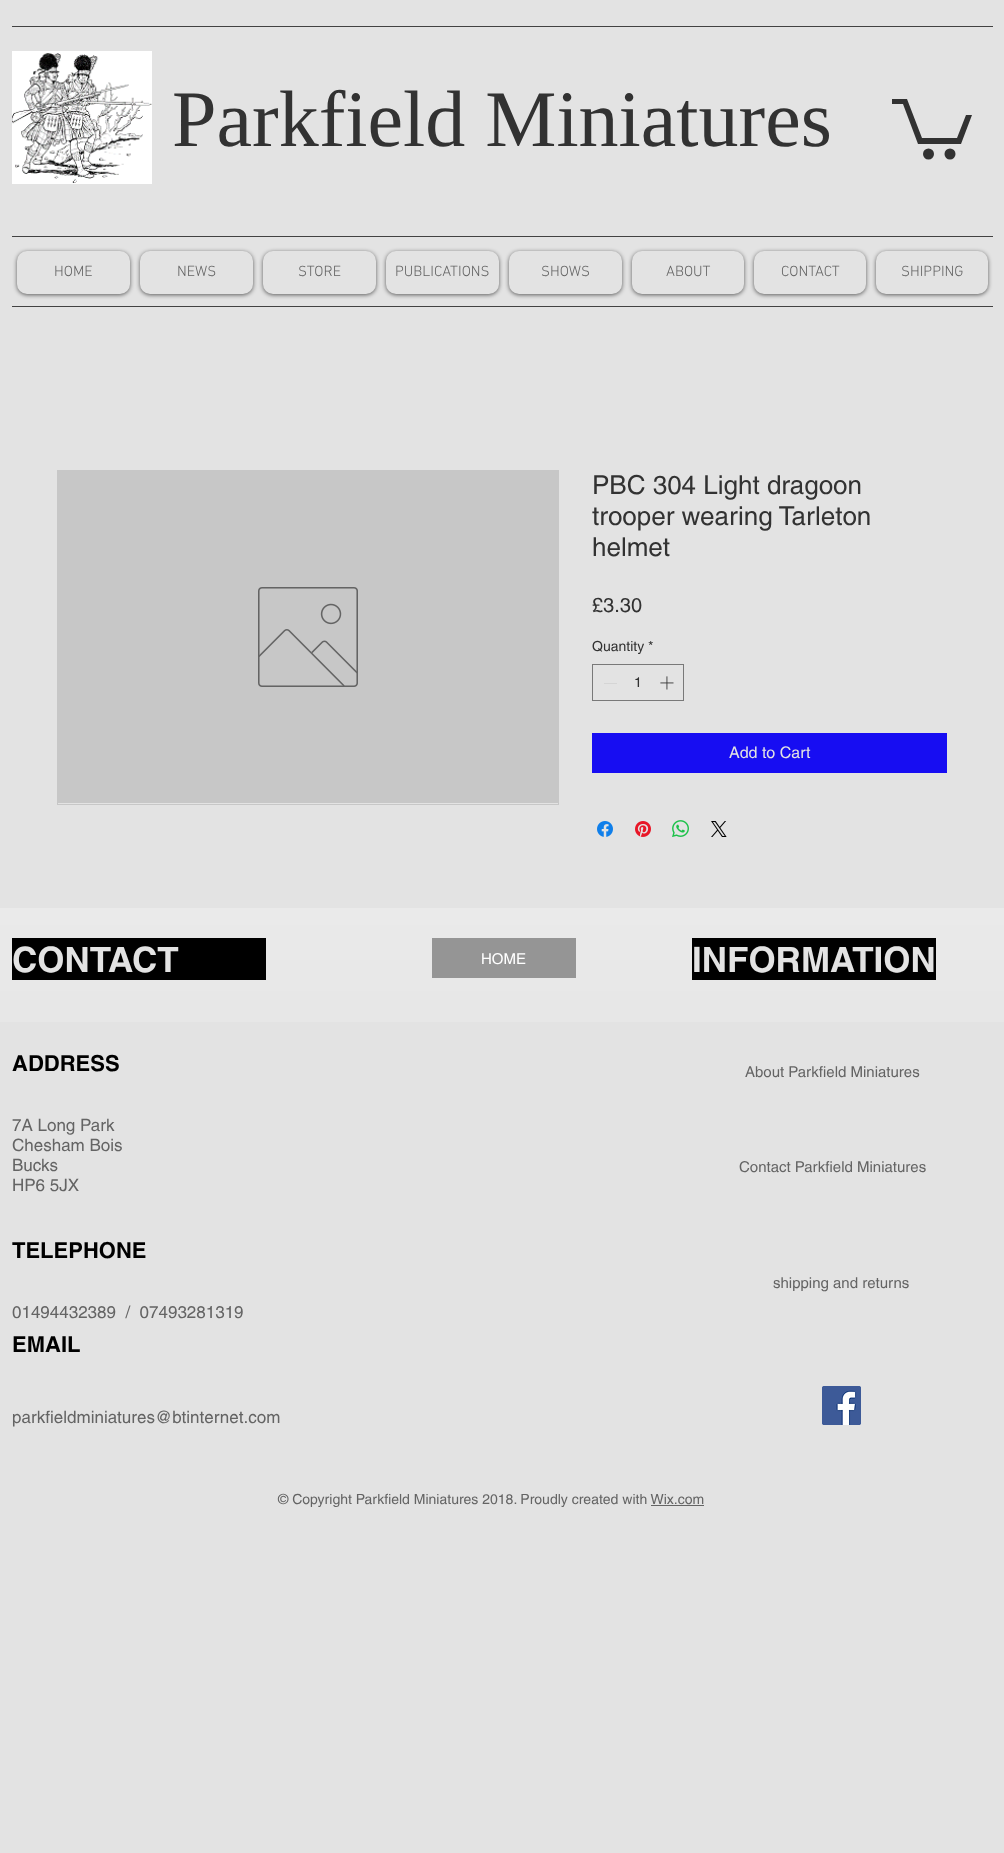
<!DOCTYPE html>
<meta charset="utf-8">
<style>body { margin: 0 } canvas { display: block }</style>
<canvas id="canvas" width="1004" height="1853"></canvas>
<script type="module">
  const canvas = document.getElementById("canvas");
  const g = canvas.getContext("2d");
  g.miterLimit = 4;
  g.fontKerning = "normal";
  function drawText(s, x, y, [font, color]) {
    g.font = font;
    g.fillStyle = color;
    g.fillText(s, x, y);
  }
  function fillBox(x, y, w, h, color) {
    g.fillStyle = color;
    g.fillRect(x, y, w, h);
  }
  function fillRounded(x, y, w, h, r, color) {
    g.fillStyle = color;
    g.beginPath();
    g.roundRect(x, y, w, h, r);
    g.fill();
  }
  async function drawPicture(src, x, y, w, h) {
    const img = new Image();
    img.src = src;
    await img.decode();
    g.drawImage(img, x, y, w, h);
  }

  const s1 = ["80px Liberation Serif", "#323232"];
  const s2 = ["300 15px 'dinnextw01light'", "#646464"];
  const s3 = ["26px helvetica", "#323232"];
  const s4 = ["20px helvetica", "#323232"];
  const s5 = ["14px helvetica", "#323232"];
  const s6 = ["16px helvetica", "#E3E3E3"];
  const s7 = ["bold 35px helvetica", "#E3E3E3"];
  const s8 = ["15px helvetica", "#FFFFFF"];
  const s9 = ["bold 22px helvetica", "#000000"];
  const s10 = ["15px helvetica", "#646464"];
  const s11 = ["17px helvetica", "#646464"];
  const s12 = ["14px helvetica", "#646464"];

  fillBox(0, 0, 1004, 1853, "#E3E3E3");
  fillBox(12, 26, 981, 1, "#424242");
  await drawPicture("pic1.png", 12, 51, 140, 133);
  drawText("Parkfield Miniatures", 172, 146, s1);
  g.beginPath();
  g.moveTo(972, 115);
  g.lineTo(961, 144);
  g.lineTo(918, 144);
  g.lineTo(903, 104);
  g.lineTo(892, 104);
  g.lineTo(892, 99);
  g.lineTo(907, 99);
  g.lineTo(922, 138);
  g.lineTo(957, 138);
  g.lineTo(966, 115);
  g.fill();
  g.beginPath();
  g.arc(950, 154, 5.5, 0, Math.PI * 2);
  g.fill();
  g.beginPath();
  g.arc(928.5, 154, 5.5, 0, Math.PI * 2);
  g.fill();
  fillBox(12, 236, 981, 1, "#424242");
  g.fillStyle = "rgba(0, 0, 0, 0.6)";
  g.filter = "blur(2px)";
  g.beginPath();
  g.roundRect(17, 252, 113, 43, 10);
  g.fill();
  g.filter = "none";
  fillRounded(17, 251, 113, 43, 10, "#E3E3E3");
  drawText("HOME", 54, 276, s2);
  g.fillStyle = "rgba(0, 0, 0, 0.6)";
  g.filter = "blur(2px)";
  g.beginPath();
  g.roundRect(140, 252, 113, 43, 10);
  g.fill();
  g.filter = "none";
  fillRounded(140, 251, 113, 43, 10, "#E3E3E3");
  drawText("NEWS", 177, 276, s2);
  g.fillStyle = "rgba(0, 0, 0, 0.6)";
  g.filter = "blur(2px)";
  g.beginPath();
  g.roundRect(263, 252, 113, 43, 10);
  g.fill();
  g.filter = "none";
  fillRounded(263, 251, 113, 43, 10, "#E3E3E3");
  drawText("STORE", 298, 276, s2);
  g.fillStyle = "rgba(0, 0, 0, 0.6)";
  g.filter = "blur(2px)";
  g.beginPath();
  g.roundRect(386, 252, 113, 43, 10);
  g.fill();
  g.filter = "none";
  fillRounded(386, 251, 113, 43, 10, "#E3E3E3");
  drawText("PUBLICATIONS", 395, 276, s2);
  g.fillStyle = "rgba(0, 0, 0, 0.6)";
  g.filter = "blur(2px)";
  g.beginPath();
  g.roundRect(509, 252, 113, 43, 10);
  g.fill();
  g.filter = "none";
  fillRounded(509, 251, 113, 43, 10, "#E3E3E3");
  drawText("SHOWS", 541, 276, s2);
  g.fillStyle = "rgba(0, 0, 0, 0.6)";
  g.filter = "blur(2px)";
  g.beginPath();
  g.roundRect(632, 252, 112, 43, 10);
  g.fill();
  g.filter = "none";
  fillRounded(632, 251, 112, 43, 10, "#E3E3E3");
  drawText("ABOUT", 666, 276, s2);
  g.fillStyle = "rgba(0, 0, 0, 0.6)";
  g.filter = "blur(2px)";
  g.beginPath();
  g.roundRect(754, 252, 112, 43, 10);
  g.fill();
  g.filter = "none";
  fillRounded(754, 251, 112, 43, 10, "#E3E3E3");
  drawText("CONTACT", 781, 276, s2);
  g.fillStyle = "rgba(0, 0, 0, 0.6)";
  g.filter = "blur(2px)";
  g.beginPath();
  g.roundRect(876, 252, 112, 43, 10);
  g.fill();
  g.filter = "none";
  fillRounded(876, 251, 112, 43, 10, "#E3E3E3");
  drawText("SHIPPING", 901, 276, s2);
  fillBox(12, 306, 981, 1, "#424242");
  g.strokeStyle = "#C7C7C7";
  g.strokeRect(57.5, 470.5, 501, 334);
  fillBox(58, 471, 500, 332, "#C7C7C7");
  await drawPicture("pic2.png", 258, 587, 100, 100);
  drawText("PBC 304 Light dragoon", 592, 494, s3);
  drawText("trooper wearing Tarleton", 592, 525, s3);
  drawText("helmet", 592, 556, s3);
  drawText("£3.30", 592, 612, s4);
  drawText("Quantity *", 592, 651, s5);
  g.strokeStyle = "#797979";
  g.strokeRect(592.5, 664.5, 91, 36);
  fillBox(604, 683, 13, 1, "#D5D5D5");
  drawText("1", 634, 687, s5);
  await drawPicture("pic3.png", 660, 676, 14, 14);
  fillBox(592, 733, 355, 40, "#170DF2");
  drawText("Add to Cart", 729, 758, s6);
  await drawPicture("pic4.png", 597, 821, 16, 16);
  await drawPicture("pic5.png", 635, 821, 16, 16);
  await drawPicture("pic6.png", 672, 820, 17, 17);
  await drawPicture("pic7.png", 711, 821, 16, 16);
  await drawPicture("pic8.png", 0, 908, 1004, 114);
  fillBox(12, 938, 254, 42, "#000000");
  drawText("CONTACT", 12, 972, s7);
  fillBox(432, 938, 144, 40, "#959595");
  drawText("HOME", 481, 964, s8);
  fillBox(692, 938, 244, 42, "#000000");
  drawText("INFORMATION", 692, 972, s7);
  drawText("ADDRESS", 12, 1071, s9);
  drawText("About Parkfield Miniatures", 745, 1077, s10);
  drawText("7A Long Park", 12, 1131, s11);
  drawText("Chesham Bois", 12, 1151, s11);
  drawText("Bucks", 12, 1171, s11);
  drawText("HP6 5JX", 12, 1191, s11);
  drawText("Contact Parkfield Miniatures", 739, 1172, s10);
  drawText("TELEPHONE", 12, 1258, s9);
  drawText("shipping and returns", 773, 1288, s10);
  drawText("01494432389  /  07493281319", 12, 1318, s11);
  drawText("EMAIL", 12, 1352, s9);
  drawText("parkfieldminiatures@btinternet.com", 12, 1423, s11);
  await drawPicture("pic9.png", 822, 1386, 39, 39);
  drawText("© Copyright Parkfield Miniatures 2018. Proudly created with Wix.com", 278, 1504, s12);
  fillBox(651, 1505, 53, 1, "#646464");
</script>
